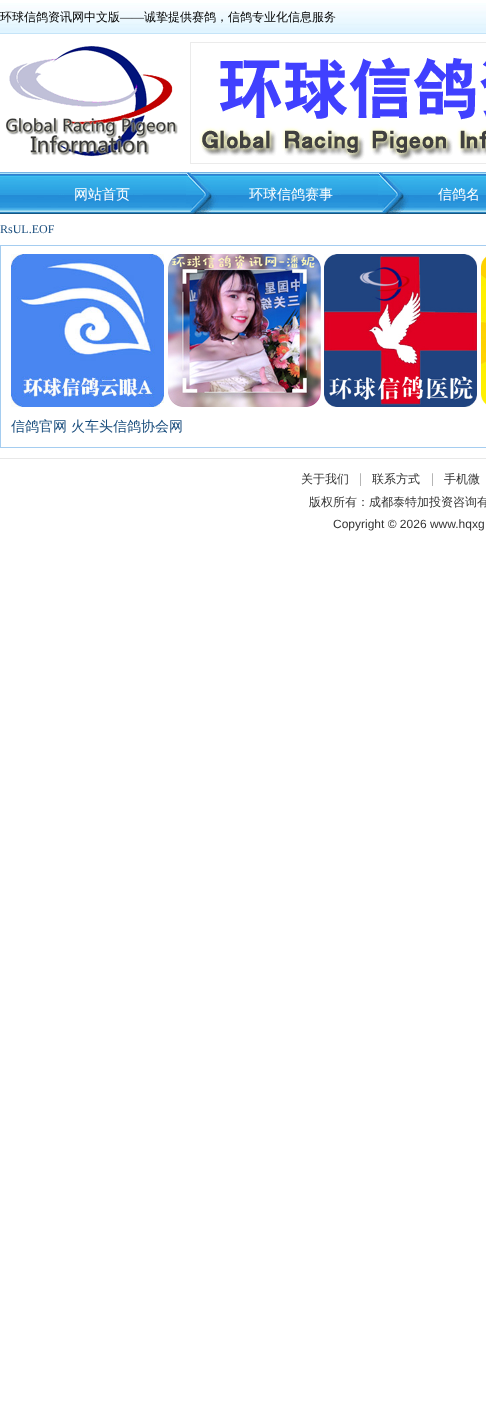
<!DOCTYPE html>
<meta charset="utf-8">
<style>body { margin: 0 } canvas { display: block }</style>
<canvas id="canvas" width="486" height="1401"></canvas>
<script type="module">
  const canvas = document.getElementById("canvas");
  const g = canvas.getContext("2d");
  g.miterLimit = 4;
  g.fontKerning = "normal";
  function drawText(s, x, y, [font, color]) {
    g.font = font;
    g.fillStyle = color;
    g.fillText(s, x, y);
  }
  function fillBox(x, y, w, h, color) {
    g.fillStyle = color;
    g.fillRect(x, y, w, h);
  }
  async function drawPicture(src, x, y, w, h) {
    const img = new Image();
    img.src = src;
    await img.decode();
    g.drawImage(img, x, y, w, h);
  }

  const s1 = ["500 12px WenQuanYi Zen Hei", "#000000"];
  const s2 = ["12px Liberation Serif", "#000000"];
  const s3 = ["500 14px WenQuanYi Zen Hei", "#FFFFFF"];
  const s4 = ["12px Liberation Serif", "#194D7D"];
  const s5 = ["500 14px WenQuanYi Zen Hei", "#194D7D"];
  const s6 = ["500 12px WenQuanYi Zen Hei", "#333333"];
  const s7 = ["14px Liberation Serif", "#999999"];
  const s8 = ["12px Liberation Sans", "#333333"];

  fillBox(0, 0, 486, 1401, "#FFFFFF");
  await drawPicture("pic1.png", 0, 3, 486, 30);
  fillBox(0, 33, 486, 1, "#C5E4F8");
  drawText("环球信鸽资讯网中文版", 0, 21, s1);
  drawText("——", 120, 21, s2);
  drawText("诚挚提供赛鸽，信鸽专业化信息服务", 144, 21, s1);
  await drawPicture("pic2.png", 5, 46, 173, 111);
  g.strokeStyle = "#EBEBEB";
  g.strokeRect(190.5, 42.5, 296, 121);
  await drawPicture("pic3.png", 199, 57, 287, 104);
  await drawPicture("pic4.png", 0, 172, 486, 42);
  await drawPicture("pic5.png", 172, 172, 237, 42);
  drawText("网站首页", 74, 199, s3);
  drawText("环球信鸽赛事", 249, 199, s3);
  drawText("信鸽名", 438, 199, s3);
  drawText("RsUL.EOF", 0, 233, s4);
  g.strokeStyle = "#A5CDF0";
  g.strokeRect(0.5, 245.5, 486, 202);
  await drawPicture("pic6.png", 11, 254, 153, 153);
  await drawPicture("pic7.png", 168, 254, 153, 153);
  await drawPicture("pic8.png", 324, 254, 153, 153);
  await drawPicture("pic9.png", 481, 256, 5, 149);
  drawText("信鸽官网", 11, 431, s5);
  drawText("火车头信鸽协会网", 71, 431, s5);
  fillBox(0, 458, 486, 1, "#E8E8E8");
  drawText("关于我们", 301, 483, s6);
  drawText("|", 359, 483, s7);
  drawText("联系方式", 372, 483, s6);
  drawText("|", 431, 483, s7);
  drawText("手机微", 444, 483, s6);
  drawText("版权所有：成都泰特加投资咨询有", 309, 506, s6);
  drawText("Copyright © 2026 www.hqxg", 333, 528, s8);
</script>
